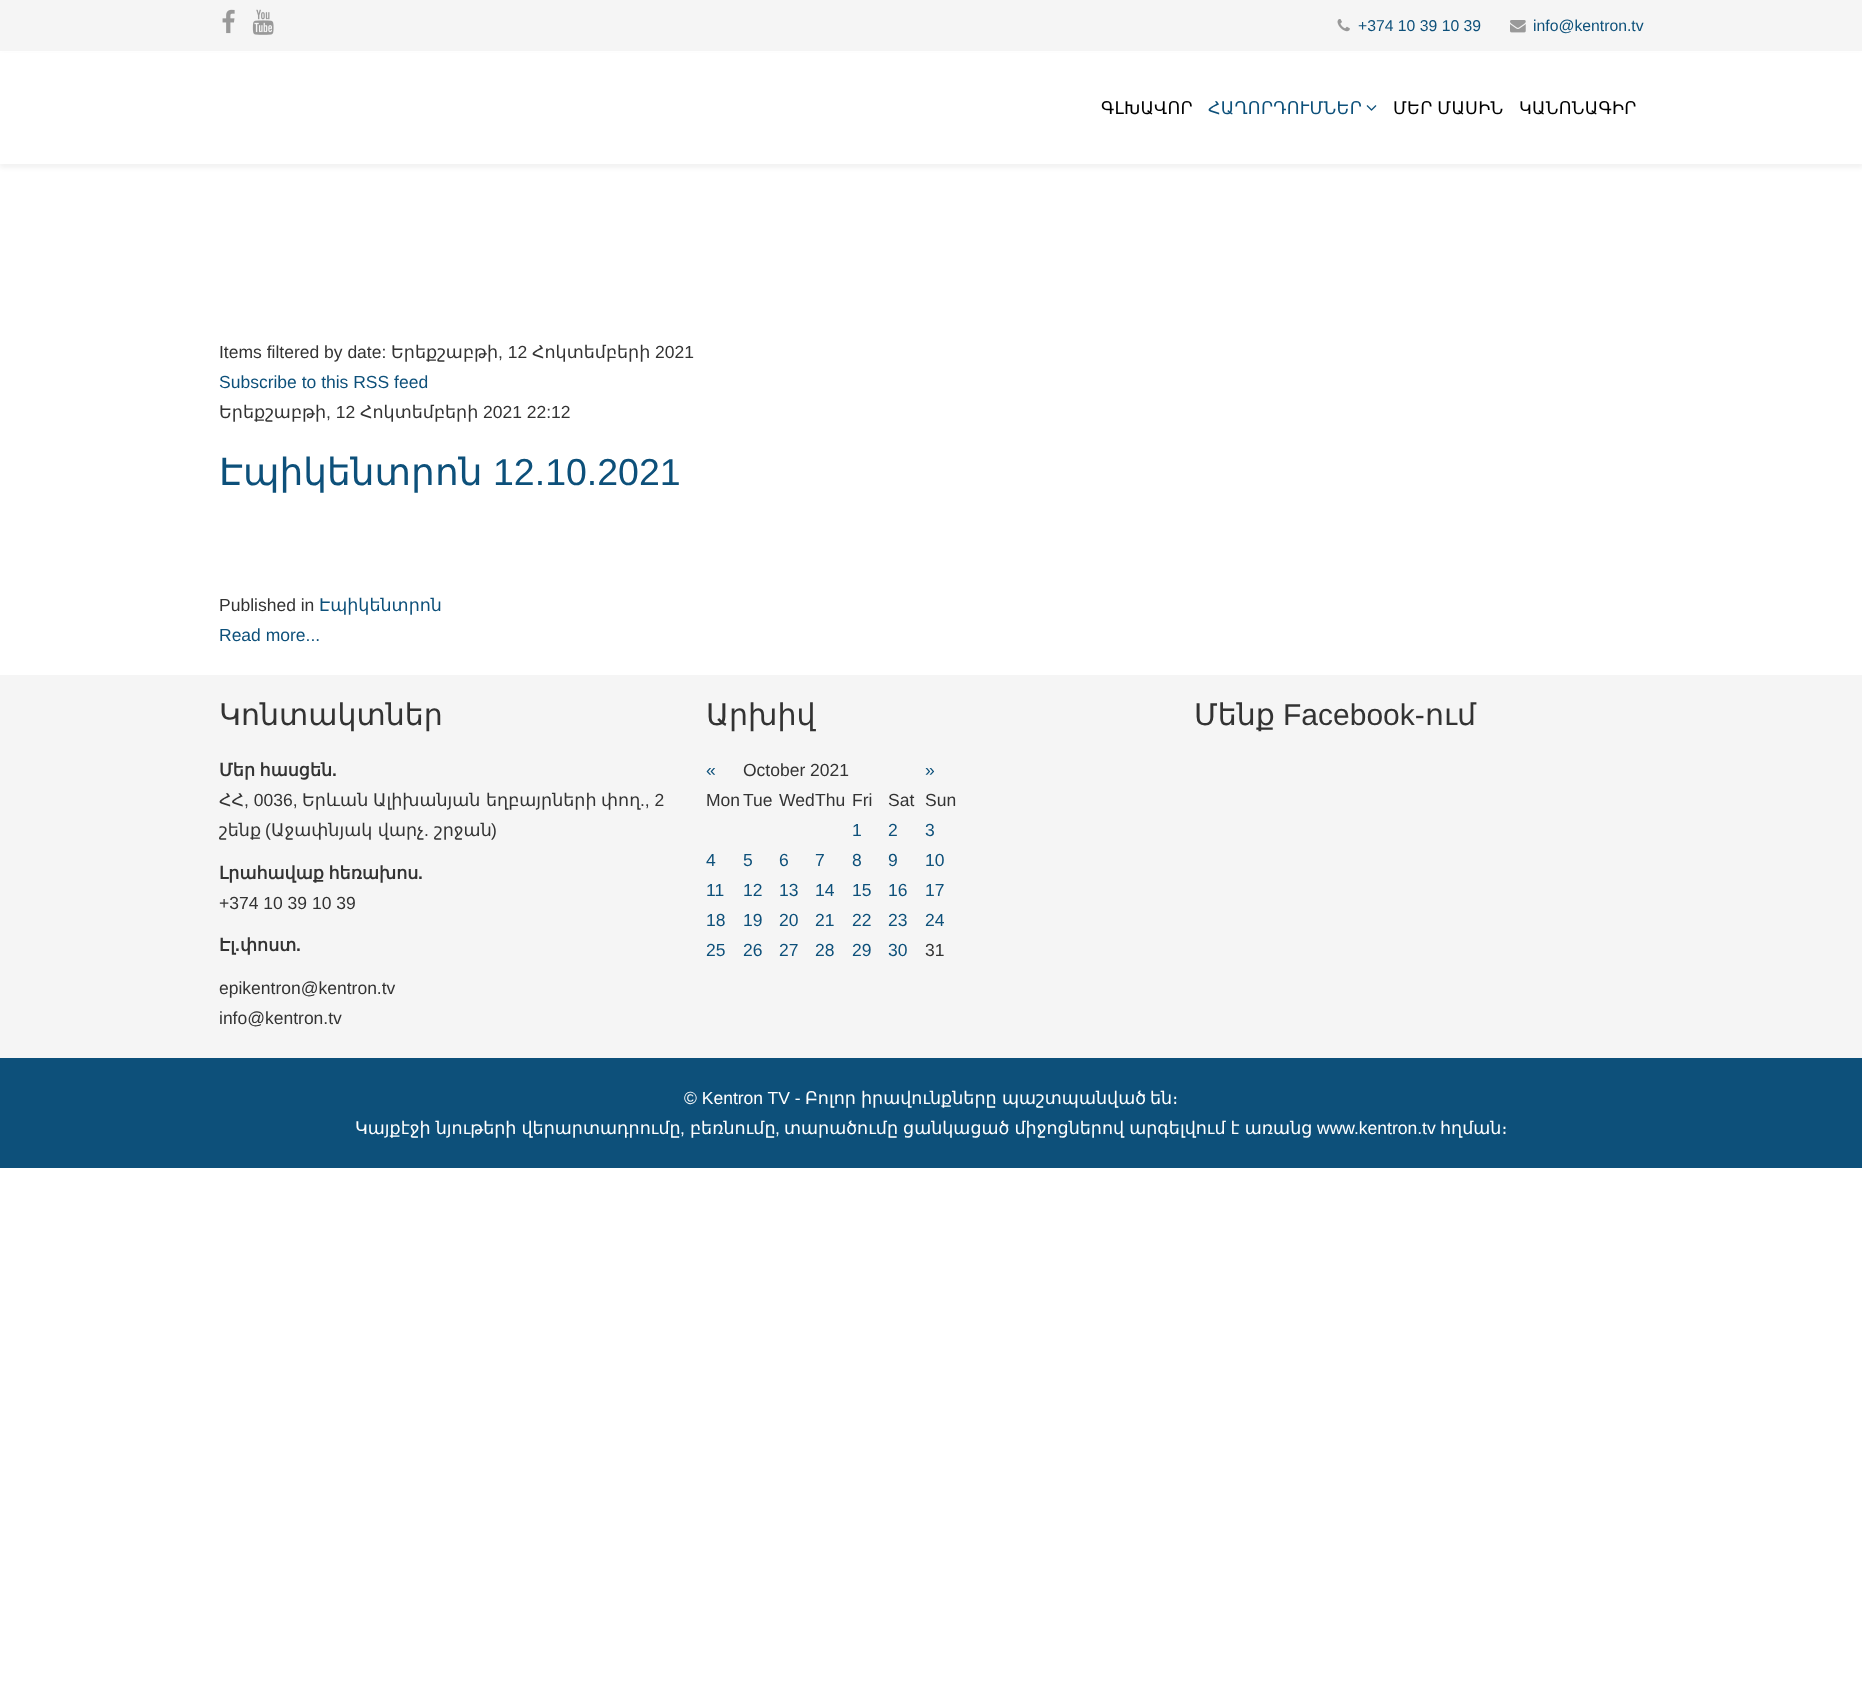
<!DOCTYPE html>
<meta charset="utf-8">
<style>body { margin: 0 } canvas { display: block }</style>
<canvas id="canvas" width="1862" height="1686"></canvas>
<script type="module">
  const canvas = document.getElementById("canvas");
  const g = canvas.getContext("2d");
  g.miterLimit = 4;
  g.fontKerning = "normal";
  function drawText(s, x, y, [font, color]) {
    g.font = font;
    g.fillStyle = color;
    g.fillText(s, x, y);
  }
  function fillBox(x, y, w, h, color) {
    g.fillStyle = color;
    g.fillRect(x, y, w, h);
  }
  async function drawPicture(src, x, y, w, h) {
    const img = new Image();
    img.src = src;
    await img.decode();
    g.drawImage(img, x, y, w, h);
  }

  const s1 = ["15.75px Liberation Sans", "#0D507A"];
  const s2 = ["17.5px DejaVu Sans", "#000000"];
  const s3 = ["17.5px DejaVu Sans", "#0D507A"];
  const s4 = ["17.5px Liberation Sans", "#333333"];
  const s5 = ["17.5px DejaVu Sans", "#333333"];
  const s6 = ["17.5px Liberation Sans", "#0D507A"];
  const s7 = ["37.5px DejaVu Sans", "#0D507A"];
  const s8 = ["37.5px Liberation Sans", "#0D507A"];
  const s9 = ["30px DejaVu Sans", "#333333"];
  const s10 = ["bold 17.5px DejaVu Sans", "#333333"];
  const s11 = ["bold 17.5px Liberation Sans", "#333333"];
  const s12 = ["30px Liberation Sans", "#333333"];
  const s13 = ["17.5px Liberation Sans", "#FFFFFF"];
  const s14 = ["17.5px DejaVu Sans", "#FFFFFF"];

  fillBox(0, 0, 1862, 1686, "#FFFFFF");
  fillBox(0, 0, 1862, 51, "#F5F5F5");
  await drawPicture("pic1.png", 222, 9, 13, 25);
  await drawPicture("pic2.png", 252, 9, 22, 26);
  await drawPicture("pic3.png", 1337, 19, 13, 13);
  drawText("+374 10 39 10 39", 1358, 31, s1);
  await drawPicture("pic4.png", 1510, 20, 16, 13);
  drawText("info@kentron.tv", 1533, 31, s1);
  g.fillStyle = "rgba(0, 0, 0, 0.05)";
  g.filter = "blur(2px)";
  g.beginPath();
  g.rect(0, 55, 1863, 113);
  g.fill();
  g.filter = "none";
  fillBox(0, 53, 1862, 111, "#FFFFFF");
  g.letterSpacing = "0.25px";
  drawText("ԳԼԽԱՎՈՐ", 1101, 114, s2);
  drawText("ՀԱՂՈՐԴՈՒՄՆԵՐ", 1208, 114, s3);
  await drawPicture("pic5.png", 1366, 105, 11, 6);
  g.wordSpacing = "-1px";
  drawText("ՄԵՐ ՄԱՍԻՆ", 1393, 114, s2);
  g.wordSpacing = "0px";
  drawText("ԿԱՆՈՆԱԳԻՐ", 1519, 114, s2);
  g.letterSpacing = "0px";
  drawText("Items filtered by date:", 219, 358, s4);
  drawText("Երեքշաբթի", 391, 358, s5);
  drawText(", 12", 498, 358, s4);
  drawText("Հոկտեմբերի", 532, 358, s5);
  drawText("2021", 655, 358, s4);
  drawText("Subscribe to this RSS feed", 219, 388, s6);
  drawText("Երեքշաբթի", 219, 418, s5);
  drawText(", 12", 326, 418, s4);
  drawText("Հոկտեմբերի", 360, 418, s5);
  drawText("2021 22:12", 483, 418, s4);
  drawText("Էպիկենտրոն", 219, 485, s7);
  drawText("12.10.2021", 493, 485, s8);
  drawText("Published in", 219, 611, s4);
  drawText("Էպիկենտրոն", 319, 611, s3);
  drawText("Read more...", 219, 641, s6);
  fillBox(0, 675, 1862, 383, "#F5F5F5");
  drawText("Կոնտակտներ", 219, 725, s9);
  g.wordSpacing = "-1px";
  drawText("Մեր հասցեն", 219, 776, s10);
  g.wordSpacing = "0px";
  drawText(".", 332, 776, s11);
  drawText("ՀՀ", 219, 806, s5);
  drawText(", 0036,", 244, 806, s4);
  drawText("Երևան", 302, 806, s5);
  drawText("Ալիխանյան", 373, 806, s5);
  drawText("եղբայրների", 486, 806, s5);
  drawText("փող", 601, 806, s5);
  drawText("., 2", 640, 806, s4);
  drawText("շենք", 219, 836, s5);
  drawText("(", 265, 836, s4);
  drawText("Աջափնյակ վարչ", 271, 836, s5);
  drawText(".", 424, 836, s4);
  drawText("շրջան", 434, 836, s5);
  drawText(")", 491, 836, s4);
  g.wordSpacing = "-1px";
  drawText("Լրահավաք հեռախոս", 219, 879, s10);
  g.wordSpacing = "0px";
  drawText(".", 418, 879, s11);
  drawText("+374 10 39 10 39", 219, 909, s4);
  drawText("Էլ", 219, 951, s10);
  drawText(".", 235, 951, s11);
  drawText("փոստ", 240, 951, s10);
  drawText(".", 296, 951, s11);
  drawText("epikentron@kentron.tv", 219, 994, s4);
  drawText("info@kentron.tv", 219, 1024, s4);
  drawText("Արխիվ", 706, 725, s9);
  drawText("«", 706, 776, s6);
  drawText("October 2021", 743, 776, s4);
  drawText("»", 925, 776, s6);
  drawText("Mon", 706, 806, s4);
  drawText("Tue", 743, 806, s4);
  drawText("Wed", 779, 806, s4);
  drawText("Thu", 815, 806, s4);
  drawText("Fri", 852, 806, s4);
  drawText("Sat", 888, 806, s4);
  drawText("Sun", 925, 806, s4);
  drawText("1", 852, 836, s6);
  drawText("2", 888, 836, s6);
  drawText("3", 925, 836, s6);
  drawText("4", 706, 866, s6);
  drawText("5", 743, 866, s6);
  drawText("6", 779, 866, s6);
  drawText("7", 815, 866, s6);
  drawText("8", 852, 866, s6);
  drawText("9", 888, 866, s6);
  drawText("10", 925, 866, s6);
  drawText("11", 706, 896, s6);
  drawText("12", 743, 896, s6);
  drawText("13", 779, 896, s6);
  drawText("14", 815, 896, s6);
  drawText("15", 852, 896, s6);
  drawText("16", 888, 896, s6);
  drawText("17", 925, 896, s6);
  drawText("18", 706, 926, s6);
  drawText("19", 743, 926, s6);
  drawText("20", 779, 926, s6);
  drawText("21", 815, 926, s6);
  drawText("22", 852, 926, s6);
  drawText("23", 888, 926, s6);
  drawText("24", 925, 926, s6);
  drawText("25", 706, 956, s6);
  drawText("26", 743, 956, s6);
  drawText("27", 779, 956, s6);
  drawText("28", 815, 956, s6);
  drawText("29", 852, 956, s6);
  drawText("30", 888, 956, s6);
  drawText("31", 925, 956, s4);
  drawText("Մենք", 1194, 725, s9);
  drawText("Facebook-", 1283, 725, s12);
  drawText("ում", 1425, 725, s9);
  fillBox(0, 1058, 1862, 110, "#0D507A");
  drawText("© Kentron TV -", 684, 1104, s13);
  drawText("Բոլոր", 805, 1104, s14);
  drawText("իրավունքները", 861, 1104, s14);
  drawText("պաշտպանված", 1002, 1104, s14);
  drawText("են։", 1150, 1104, s14);
  g.wordSpacing = "-0.5px";
  drawText("Կայքէջի նյութերի վերարտադրումը", 355, 1134, s14);
  g.wordSpacing = "0px";
  drawText(",", 680, 1134, s13);
  drawText("բեռնումը", 690, 1134, s14);
  drawText(",", 775, 1134, s13);
  g.wordSpacing = "-0.5px";
  drawText("տարածումը ցանկացած միջոցներով արգելվում է առանց", 784, 1134, s14);
  g.wordSpacing = "0px";
  drawText("www.kentron.tv", 1317, 1134, s13);
  drawText("հղման։", 1440, 1134, s14);
</script>
